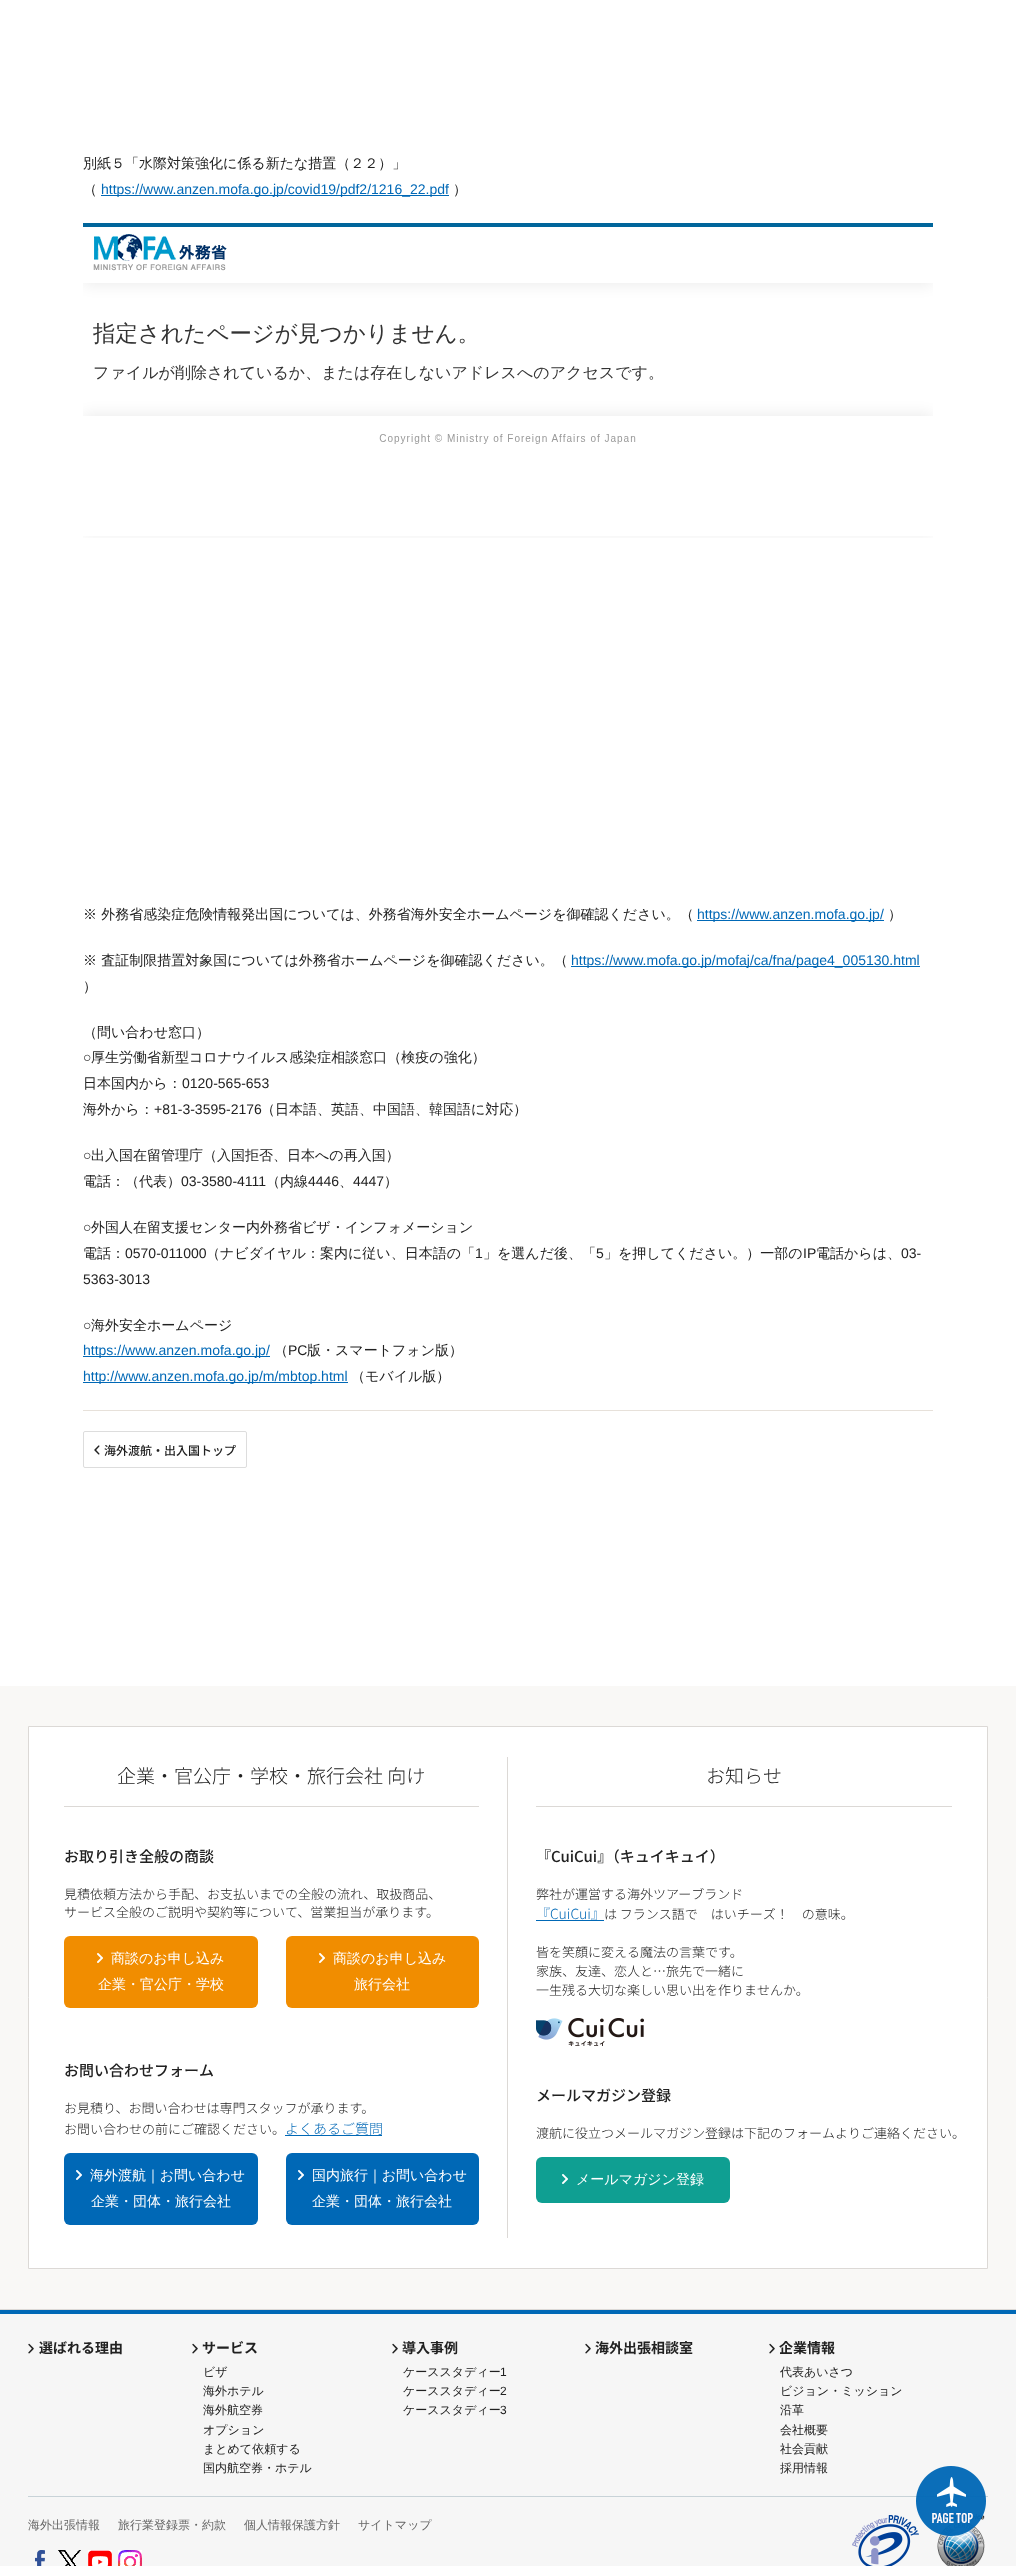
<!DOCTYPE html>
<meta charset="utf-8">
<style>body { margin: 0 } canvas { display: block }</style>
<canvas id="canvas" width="1016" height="2566"></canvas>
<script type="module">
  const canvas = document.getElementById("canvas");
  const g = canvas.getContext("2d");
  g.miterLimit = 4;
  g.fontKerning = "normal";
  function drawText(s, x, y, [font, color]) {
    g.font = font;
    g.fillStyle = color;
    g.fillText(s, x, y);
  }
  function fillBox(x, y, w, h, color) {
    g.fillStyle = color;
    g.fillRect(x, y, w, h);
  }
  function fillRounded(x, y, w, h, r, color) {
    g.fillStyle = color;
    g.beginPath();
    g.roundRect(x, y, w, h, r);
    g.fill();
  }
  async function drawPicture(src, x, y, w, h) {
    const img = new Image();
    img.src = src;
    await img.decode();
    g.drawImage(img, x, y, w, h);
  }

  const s1 = ["500 14px WenQuanYi Zen Hei", "#212121"];
  const s2 = ["14px Liberation Sans", "#0068B6"];
  const s3 = ["14px Liberation Sans", "#212121"];
  const s4 = ["500 12px Noto Sans JP", "#212121"];
  const s5 = ["300 19px Noto Sans JP", "#212121"];
  const s6 = ["500 15px Noto Sans JP", "#212121"];
  const s7 = ["300 13px Noto Sans JP", "#212121"];
  const s8 = ["500 14px WenQuanYi Zen Hei", "#FFFFFF"];
  const s9 = ["300 14px Noto Sans JP", "#0068B6"];
  const s10 = ["bold 14px Noto Sans JP", "#212121"];
  const s11 = ["500 12px WenQuanYi Zen Hei", "#212121"];
  const s12 = ["12px Liberation Sans", "#212121"];
  const s13 = ["500 12px WenQuanYi Zen Hei", "#666666"];

  fillBox(0, 0, 1016, 2566, "#FFFFFF");
  drawText("別紙５「水際対策強化に係る新たな措置（２２）」", 83, 168, s1);
  drawText("（", 83, 194, s1);
  fillBox(101, 195, 348, 1, "#0068B6");
  drawText("https://www.anzen.mofa.go.jp/covid19/pdf2/1216_22.pdf", 101, 194, s2);
  drawText("）", 453, 194, s1);
  await drawPicture("pic1.png", 83, 223, 850, 315);
  drawText("※ 外務省感染症危険情報発出国については、外務省海外安全ホームページを御確認ください。（", 83, 919, s1);
  fillBox(697, 920, 187, 1, "#0068B6");
  drawText("https://www.anzen.mofa.go.jp/", 697, 919, s2);
  drawText("）", 888, 919, s1);
  drawText("※ 査証制限措置対象国については外務省ホームページを御確認ください。（", 83, 965, s1);
  fillBox(571, 966, 349, 1, "#0068B6");
  drawText("https://www.mofa.go.jp/mofaj/ca/fna/page4_005130.html", 571, 965, s2);
  drawText("）", 83, 991, s1);
  drawText("（問い合わせ窓口）", 83, 1037, s1);
  drawText("○", 83, 1062, s3);
  drawText("厚生労働省新型コロナウイルス感染症相談窓口（検疫の強化）", 91, 1062, s1);
  drawText("日本国内から：", 83, 1088, s1);
  drawText("0120-565-653", 182, 1088, s3);
  drawText("海外から：", 83, 1114, s1);
  drawText("+81-3-3595-2176", 154, 1114, s3);
  drawText("（日本語、英語、中国語、韓国語に対応）", 261, 1114, s1);
  drawText("○", 83, 1160, s3);
  drawText("出入国在留管理庁（入国拒否、日本への再入国）", 91, 1160, s1);
  drawText("電話：（代表）", 83, 1186, s1);
  drawText("03-3580-4111", 181, 1186, s3);
  drawText("（内線", 266, 1186, s1);
  drawText("4446", 308, 1186, s3);
  drawText("、", 339, 1186, s1);
  drawText("4447", 353, 1186, s3);
  drawText("）", 384, 1186, s1);
  drawText("○", 83, 1232, s3);
  drawText("外国人在留支援センター内外務省ビザ・インフォメーション", 91, 1232, s1);
  drawText("電話：", 83, 1258, s1);
  drawText("0570-011000", 125, 1258, s3);
  drawText("（ナビダイヤル：案内に従い、日本語の「", 206, 1258, s1);
  drawText("1", 475, 1258, s3);
  drawText("」を選んだ後、「", 483, 1258, s1);
  drawText("5", 596, 1258, s3);
  drawText("」を押してください。）一部の", 604, 1258, s1);
  drawText("IP", 803, 1258, s3);
  drawText("電話からは、", 816, 1258, s1);
  drawText("03-", 901, 1258, s3);
  drawText("5363-3013", 83, 1284, s3);
  drawText("○", 83, 1330, s3);
  drawText("海外安全ホームページ", 91, 1330, s1);
  fillBox(83, 1356, 187, 1, "#0068B6");
  drawText("https://www.anzen.mofa.go.jp/", 83, 1355, s2);
  drawText("（", 274, 1355, s1);
  drawText("PC", 288, 1355, s3);
  drawText("版・スマートフォン版）", 307, 1355, s1);
  fillBox(83, 1382, 265, 1, "#0068B6");
  drawText("http://www.anzen.mofa.go.jp/m/mbtop.html", 83, 1381, s2);
  drawText("（モバイル版）", 351, 1381, s1);
  fillBox(83, 1410, 850, 1, "#E7E1DA");
  g.beginPath();
  g.roundRect(83.5, 1431.5, 163, 36, 1.5);
  g.strokeStyle = "#DDDDDD";
  g.stroke();
  await drawPicture("pic2.png", 94, 1445, 6, 10);
  drawText("海外渡航・出入国トップ", 104, 1455, s4);
  fillBox(0, 1686, 1016, 623, "#F9F8F6");
  fillBox(0, 2309, 1016, 1, "#DCD9D6");
  g.fillStyle = "#FFFFFF";
  g.beginPath();
  g.rect(28.5, 1726.5, 959, 542);
  g.fill();
  g.strokeStyle = "#DCD9D6";
  g.stroke();
  fillBox(507, 1757, 1, 481, "#DCD9D6");
  fillBox(64, 1806, 415, 1, "#DCD9D6");
  drawText("企業・官公庁・学校・旅行会社 向け", 117, 1783, s5);
  drawText("お取り引き全般の商談", 64, 1862, s6);
  drawText("見積依頼方法から手配、お支払いまでの全般の流れ、取扱商品、", 64, 1899, s7);
  drawText("サービス全般のご説明や契約等について、営業担当が承ります。", 64, 1917, s7);
  fillRounded(64, 1936, 194, 72, 6, "#F18D00");
  await drawPicture("pic3.png", 97, 1953, 6, 10);
  drawText("商談のお申し込み", 111, 1963, s8);
  drawText("企業・官公庁・学校", 98, 1989, s8);
  fillRounded(286, 1936, 193, 72, 6, "#F18D00");
  await drawPicture("pic3.png", 319, 1953, 6, 10);
  drawText("商談のお申し込み", 333, 1963, s8);
  drawText("旅行会社", 354, 1989, s8);
  drawText("お問い合わせフォーム", 64, 2076, s6);
  drawText("お見積り、お問い合わせは専門スタッフが承ります。", 64, 2113, s7);
  drawText("お問い合わせの前にご確認ください。", 64, 2134, s7);
  fillBox(285, 2135, 97, 1, "#0068B6");
  drawText("よくあるご質問", 285, 2134, s9);
  fillRounded(64, 2153, 194, 72, 6, "#0068B6");
  await drawPicture("pic4.png", 76, 2170, 6, 10);
  drawText("海外渡航｜お問い合わせ", 90, 2180, s8);
  drawText("企業・団体・旅行会社", 91, 2206, s8);
  fillRounded(286, 2153, 193, 72, 6, "#0068B6");
  await drawPicture("pic4.png", 298, 2170, 6, 10);
  drawText("国内旅行｜お問い合わせ", 312, 2180, s8);
  drawText("企業・団体・旅行会社", 312, 2206, s8);
  fillBox(536, 1806, 416, 1, "#DCD9D6");
  drawText("お知らせ", 706, 1783, s5);
  drawText("『CuiCui』（キュイキュイ）", 536, 1862, s6);
  drawText("弊社が運営する海外ツアーブランド", 536, 1899, s7);
  fillBox(536, 1920, 68, 1, "#0068B6");
  drawText("『CuiCui』", 536, 1919, s9);
  drawText("は フランス語で　はいチーズ！　の意味。", 604, 1919, s7);
  drawText("皆を笑顔に変える魔法の言葉です。", 536, 1957, s7);
  drawText("家族、友達、恋人と…旅先で一緒に", 536, 1976, s7);
  drawText("一生残る大切な楽しい思い出を作りませんか。", 536, 1995, s7);
  await drawPicture("pic5.png", 536, 2018, 108, 28);
  drawText("メールマガジン登録", 536, 2101, s6);
  drawText("渡航に役立つメールマガジン登録は下記のフォームよりご連絡ください。", 536, 2138, s7);
  fillRounded(536, 2157, 194, 46, 6, "#0F9F92");
  await drawPicture("pic6.png", 562, 2174, 6, 10);
  drawText("メールマガジン登録", 576, 2184, s8);
  fillBox(0, 2314, 1016, 252, "#F6F6F6");
  fillBox(0, 2310, 1016, 4, "#0068B6");
  fillBox(28, 2496, 960, 1, "#C8D3D8");
  await drawPicture("pic7.png", 28, 2343, 6, 11);
  drawText("選ばれる理由", 39, 2353, s10);
  await drawPicture("pic7.png", 192, 2343, 6, 11);
  drawText("サービス", 202, 2353, s10);
  drawText("ビザ", 203, 2376, s11);
  drawText("海外ホテル", 203, 2395, s11);
  drawText("海外航空券", 203, 2414, s11);
  drawText("オプション", 203, 2434, s11);
  drawText("まとめて依頼する", 203, 2453, s11);
  drawText("国内航空券・ホテル", 203, 2472, s11);
  await drawPicture("pic7.png", 392, 2343, 6, 11);
  drawText("導入事例", 402, 2353, s10);
  drawText("ケーススタディー", 403, 2376, s11);
  drawText("1", 500, 2376, s12);
  drawText("ケーススタディー", 403, 2395, s11);
  drawText("2", 500, 2395, s12);
  drawText("ケーススタディー", 403, 2414, s11);
  drawText("3", 500, 2414, s12);
  await drawPicture("pic7.png", 585, 2343, 6, 11);
  drawText("海外出張相談室", 595, 2353, s10);
  await drawPicture("pic7.png", 769, 2343, 6, 11);
  drawText("企業情報", 779, 2353, s10);
  drawText("代表あいさつ", 780, 2376, s11);
  drawText("ビジョン・ミッション", 780, 2395, s11);
  drawText("沿革", 780, 2414, s11);
  drawText("会社概要", 780, 2434, s11);
  drawText("社会貢献", 780, 2453, s11);
  drawText("採用情報", 780, 2472, s11);
  drawText("海外出張情報", 28, 2529, s13);
  drawText("旅行業登録票・約款", 118, 2529, s13);
  drawText("個人情報保護方針", 244, 2529, s13);
  drawText("サイトマップ", 358, 2529, s13);
  await drawPicture("pic8.png", 35, 2550, 10, 16);
  await drawPicture("pic9.png", 58, 2550, 23, 16);
  await drawPicture("pic10.png", 88, 2550, 24, 16);
  await drawPicture("pic11.png", 118, 2550, 24, 16);
  await drawPicture("pic12.png", 852, 2515, 67, 51);
  await drawPicture("pic13.png", 934, 2512, 51, 54);
  await drawPicture("pic14.png", 916, 2466, 70, 70);
</script>
